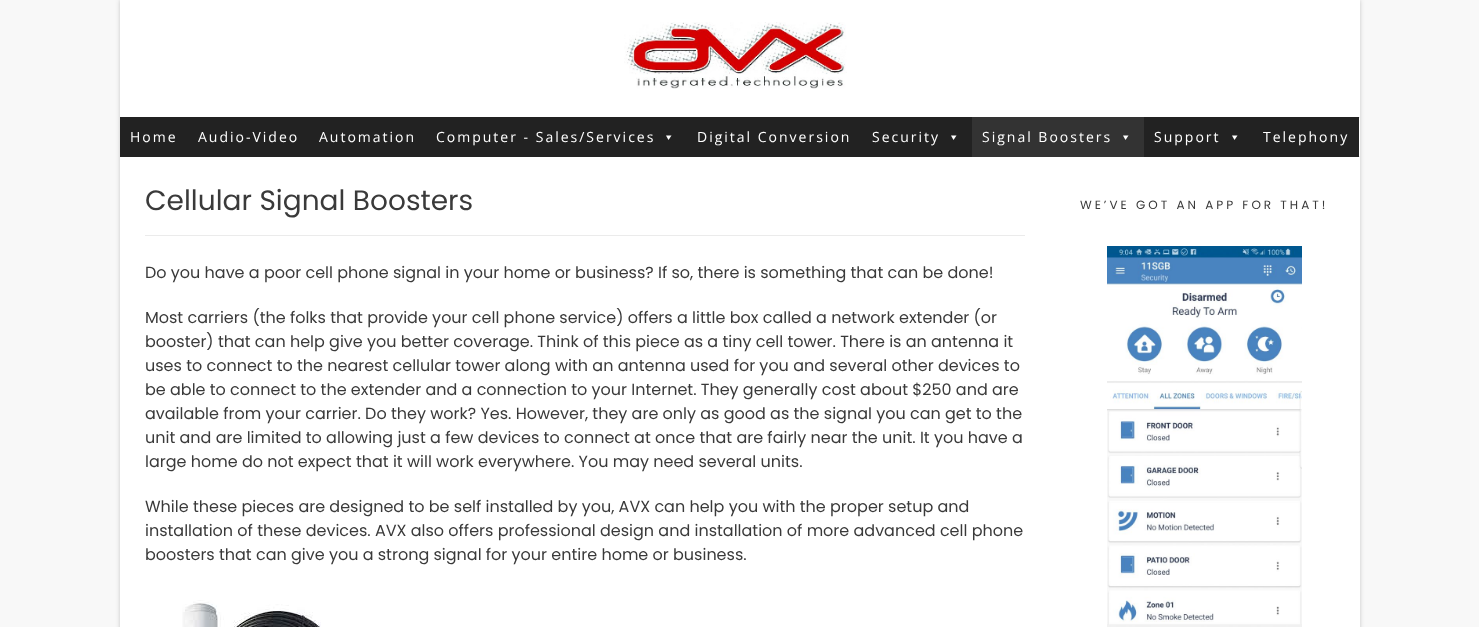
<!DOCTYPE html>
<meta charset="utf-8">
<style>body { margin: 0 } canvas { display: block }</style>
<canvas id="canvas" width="1479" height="627"></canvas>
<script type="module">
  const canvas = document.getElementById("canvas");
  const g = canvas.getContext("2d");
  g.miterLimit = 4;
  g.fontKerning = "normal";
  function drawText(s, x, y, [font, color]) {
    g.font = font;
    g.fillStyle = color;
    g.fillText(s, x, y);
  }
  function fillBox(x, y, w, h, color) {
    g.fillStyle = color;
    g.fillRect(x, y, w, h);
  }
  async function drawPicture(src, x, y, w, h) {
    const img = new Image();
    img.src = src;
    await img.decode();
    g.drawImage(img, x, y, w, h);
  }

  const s1 = ["14px Open Sans", "#FFFFFF"];
  const s2 = ["28px Poppins", "#3A3A3A"];
  const s3 = ["16px Poppins", "#3A3A3A"];
  const s4 = ["12px Poppins", "#3A3A3A"];

  fillBox(0, 0, 1479, 627, "#F8F8F8");
  g.fillStyle = "rgba(0, 0, 0, 0.2)";
  g.filter = "blur(2px)";
  g.beginPath();
  g.rect(120, 0, 1240, 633);
  g.fill();
  g.filter = "none";
  fillBox(120, 0, 1240, 627, "#FFFFFF");
  await drawPicture("pic1.png", 624, 22, 223, 67);
  fillBox(1359, 117, 1, 1, "#EBEBEB");
  fillBox(1359, 156, 1, 1, "#EBEBEB");
  fillBox(120, 117, 1239, 40, "#222222");
  g.letterSpacing = "2px";
  drawText("Home", 130, 142, s1);
  drawText("Audio-Video", 198, 142, s1);
  drawText("Automation", 319, 142, s1);
  drawText("Computer - Sales/Services", 436, 142, s1);
  g.beginPath();
  g.moveTo(671.5, 135.5);
  g.lineTo(668.5, 140);
  g.lineTo(666, 135.5);
  g.closePath();
  g.fill();
  drawText("Digital Conversion", 697, 142, s1);
  drawText("Security", 872, 142, s1);
  g.beginPath();
  g.moveTo(956.5, 135.5);
  g.lineTo(953.5, 140);
  g.lineTo(951, 135.5);
  g.closePath();
  g.fill();
  fillBox(972, 117, 172, 40, "#333333");
  drawText("Signal Boosters", 982, 142, s1);
  g.beginPath();
  g.moveTo(1128.5, 135.5);
  g.lineTo(1125.5, 140);
  g.lineTo(1123, 135.5);
  g.closePath();
  g.fill();
  drawText("Support", 1154, 142, s1);
  g.beginPath();
  g.moveTo(1237.5, 135.5);
  g.lineTo(1234.5, 140);
  g.lineTo(1232, 135.5);
  g.closePath();
  g.fill();
  drawText("Telephony", 1263, 142, s1);
  fillBox(145, 235, 880, 1, "#EBEBEB");
  g.letterSpacing = "0px";
  drawText("Cellular Signal Boosters", 145, 210, s2);
  drawText("Do you have a poor cell phone signal in your home or business? If so, there is something that can be done!", 145, 278, s3);
  drawText("Most carriers (the folks that provide your cell phone service) offers a little box called a network extender (or", 145, 323, s3);
  drawText("booster) that can help give you better coverage. Think of this piece as a tiny cell tower. There is an antenna it", 145, 347, s3);
  drawText("uses to connect to the nearest cellular tower along with an antenna used for you and several other devices to", 145, 371, s3);
  drawText("be able to connect to the extender and a connection to your Internet. They generally cost about $250 and are", 145, 395, s3);
  drawText("available from your carrier. Do they work? Yes. However, they are only as good as the signal you can get to the", 145, 419, s3);
  drawText("unit and are limited to allowing just a few devices to connect at once that are fairly near the unit. It you have a", 145, 443, s3);
  drawText("large home do not expect that it will work everywhere. You may need several units.", 145, 467, s3);
  drawText("While these pieces are designed to be self installed by you, AVX can help you with the proper setup and", 145, 512, s3);
  drawText("installation of these devices. AVX also offers professional design and installation of more advanced cell phone", 145, 536, s3);
  drawText("boosters that can give you a strong signal for your entire home or business.", 145, 560, s3);
  await drawPicture("pic2.png", 182, 600, 139, 27);
  g.letterSpacing = "3px";
  drawText("WE’VE GOT AN APP FOR THAT!", 1080, 209, s4);
  await drawPicture("pic3.png", 1107, 246, 195, 381);
</script>
